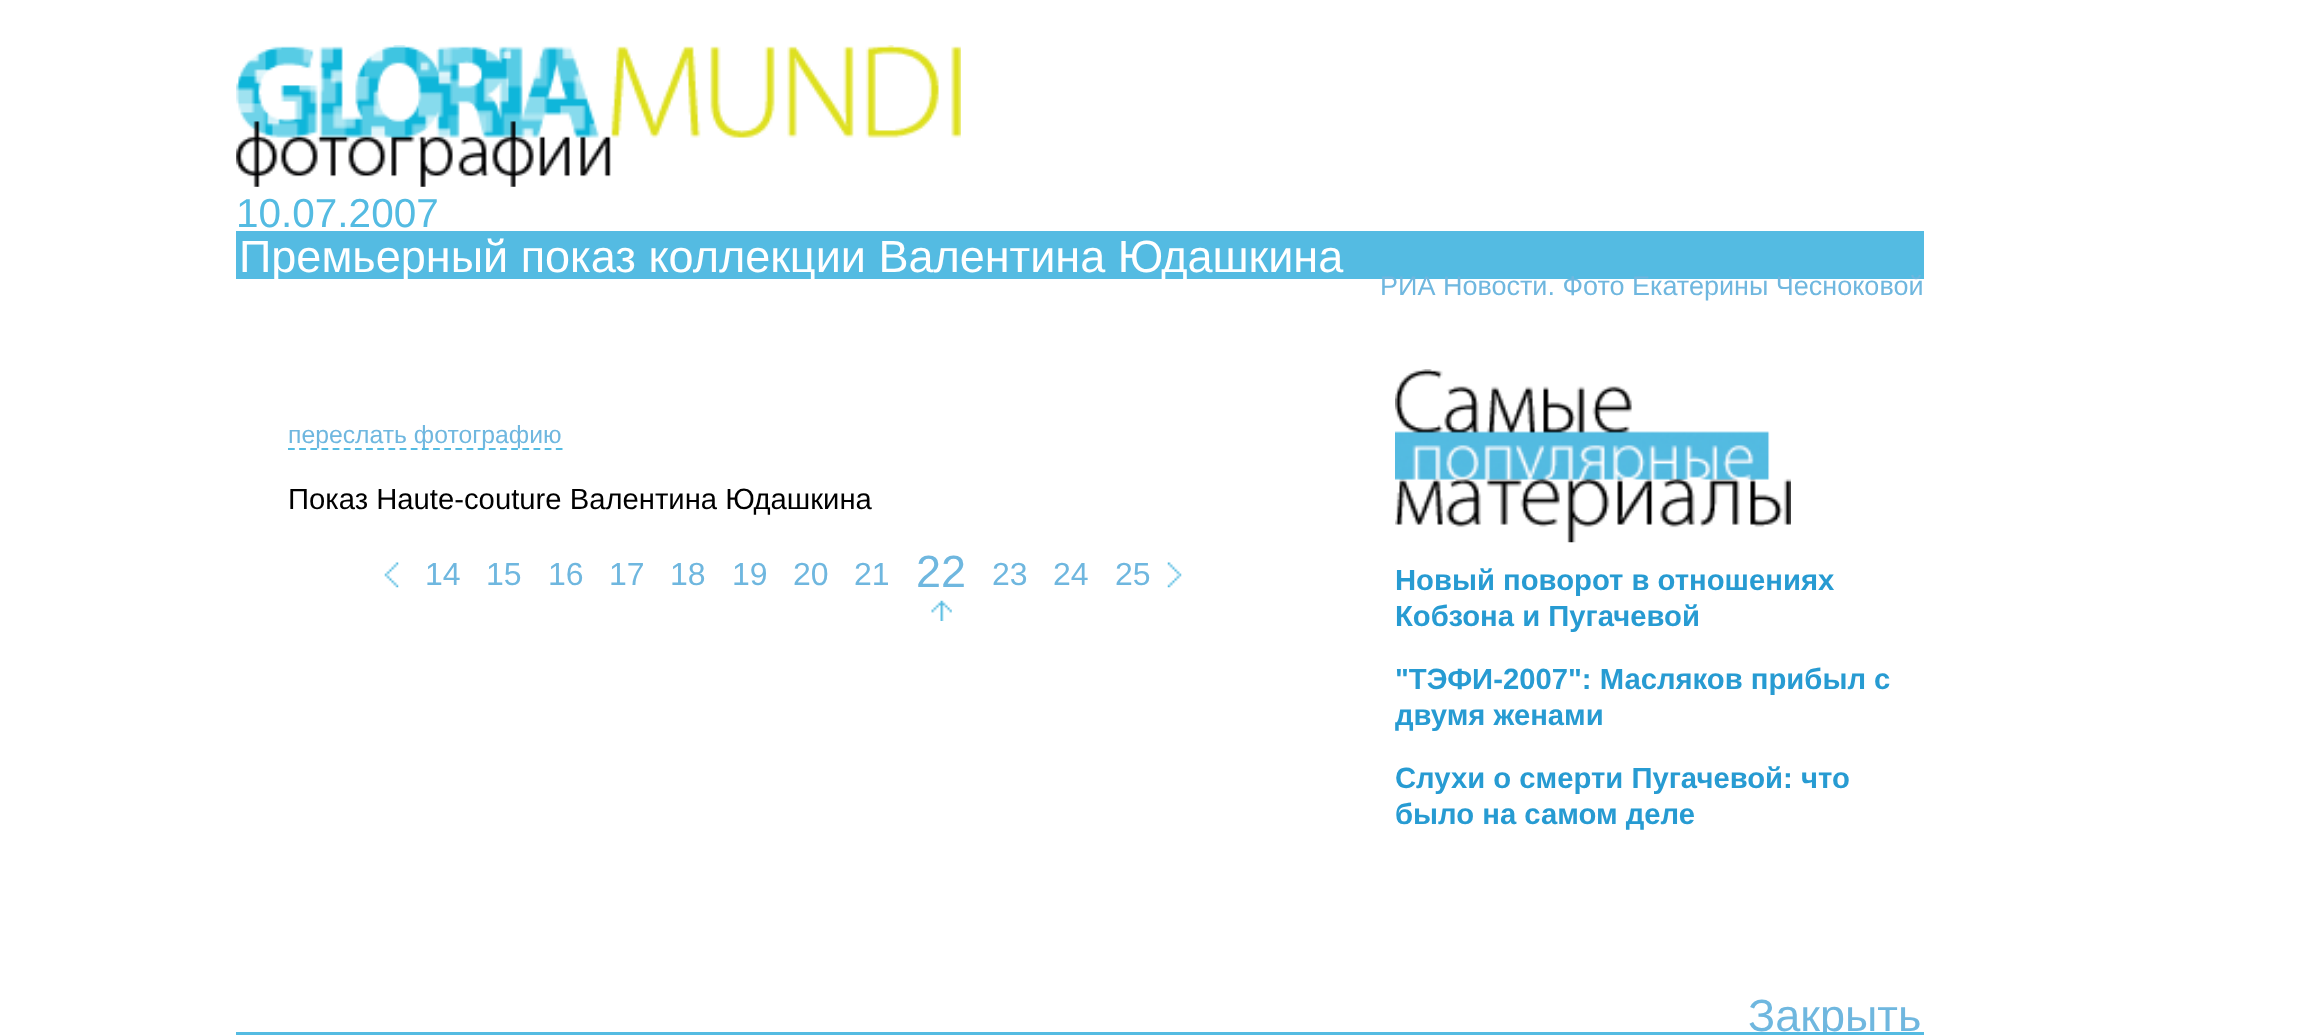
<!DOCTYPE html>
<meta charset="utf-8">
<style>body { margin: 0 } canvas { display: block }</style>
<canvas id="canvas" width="2321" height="1035"></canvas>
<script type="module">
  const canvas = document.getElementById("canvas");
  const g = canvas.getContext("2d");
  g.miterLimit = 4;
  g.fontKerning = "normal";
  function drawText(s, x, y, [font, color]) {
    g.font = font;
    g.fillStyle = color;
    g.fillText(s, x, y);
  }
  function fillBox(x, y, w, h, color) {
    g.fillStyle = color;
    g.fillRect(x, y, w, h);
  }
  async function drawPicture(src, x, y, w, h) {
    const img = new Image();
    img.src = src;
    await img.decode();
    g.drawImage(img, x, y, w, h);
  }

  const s1 = ["40.5px Liberation Sans", "#54BBE2"];
  const s2 = ["45px Liberation Sans", "#FFFFFF"];
  const s3 = ["27px Liberation Sans", "#6FB7DF"];
  const s4 = ["24.75px Liberation Sans", "#6FB7DF"];
  const s5 = ["29.25px Liberation Sans", "#000000"];
  const s6 = ["32px Liberation Sans", "#6FB7DF"];
  const s7 = ["45px Liberation Sans", "#6FB7DF"];
  const s8 = ["bold 29.25px Liberation Sans", "#279BD2"];

  fillBox(0, 0, 2321, 1035, "#FFFFFF");
  await drawPicture("pic1.png", 236, 45, 725, 142);
  drawText("10.07.2007", 236, 227, s1);
  fillBox(236, 231, 1688, 48, "#54BBE2");
  drawText("Премьерный показ коллекции Валентина Юдашкина", 239, 272, s2);
  drawText("РИА Новости. Фото Екатерины Чесноковой", 1380, 295, s3);
  g.beginPath();
  g.moveTo(288, 449);
  g.lineTo(562.5, 449);
  g.strokeStyle = "#54BBE2";
  g.lineWidth = 2.2;
  g.setLineDash([6.75, 4.41]);
  g.stroke();
  drawText("переслать фотографию", 288, 443, s4);
  drawText("Показ Haute-couture Валентина Юдашкина", 288, 509, s5);
  await drawPicture("pic2.png", 384, 562, 15, 26);
  drawText("14", 425, 585, s6);
  drawText("15", 486, 585, s6);
  drawText("16", 548, 585, s6);
  drawText("17", 609, 585, s6);
  drawText("18", 670, 585, s6);
  drawText("19", 732, 585, s6);
  drawText("20", 793, 585, s6);
  drawText("21", 854, 585, s6);
  drawText("22", 916, 587, s7);
  drawText("23", 992, 585, s6);
  drawText("24", 1053, 585, s6);
  drawText("25", 1115, 585, s6);
  await drawPicture("pic3.png", 1167, 562, 15, 26);
  await drawPicture("pic4.png", 931, 600, 21, 21);
  await drawPicture("pic5.png", 1395, 369, 396, 174);
  drawText("Новый поворот в отношениях", 1395, 590, s8);
  drawText("Кобзона и Пугачевой", 1395, 626, s8);
  drawText("\"ТЭФИ-2007\": Масляков прибыл с", 1395, 689, s8);
  drawText("двумя женами", 1395, 725, s8);
  drawText("Слухи о смерти Пугачевой: что", 1395, 788, s8);
  drawText("было на самом деле", 1395, 824, s8);
  drawText("Закрыть", 1748, 1031, s7);
  fillBox(236, 1032, 1688, 3, "#54BBE2");
</script>
